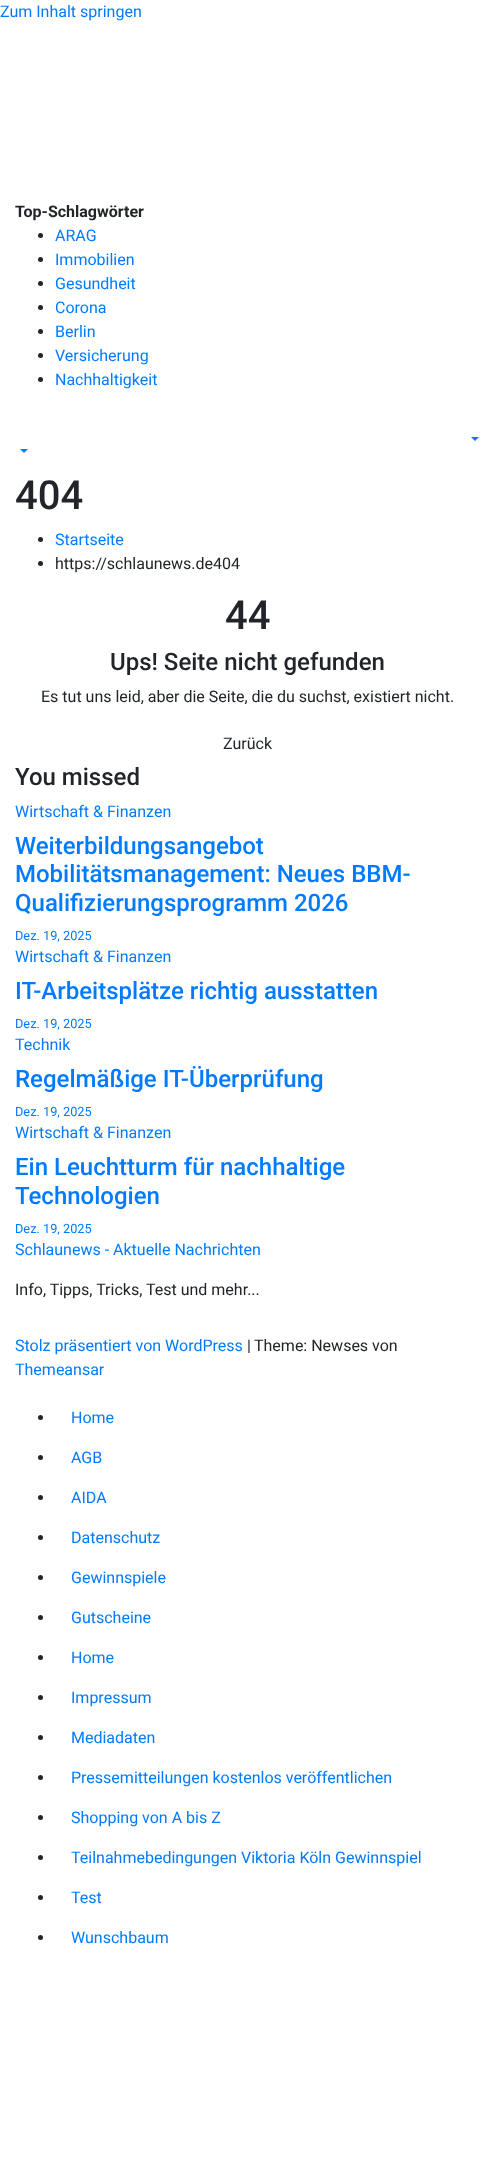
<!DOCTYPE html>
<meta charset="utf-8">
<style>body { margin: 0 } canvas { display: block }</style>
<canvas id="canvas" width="495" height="2184"></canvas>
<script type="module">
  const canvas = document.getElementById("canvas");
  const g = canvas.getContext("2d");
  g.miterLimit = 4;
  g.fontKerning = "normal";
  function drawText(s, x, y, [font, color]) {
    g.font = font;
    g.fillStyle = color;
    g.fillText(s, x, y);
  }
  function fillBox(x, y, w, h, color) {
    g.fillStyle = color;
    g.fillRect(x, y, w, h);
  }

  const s1 = ["16px Roboto", "#007BFF"];
  const s2 = ["bold 16px Roboto", "#212529"];
  const s3 = ["500 40px Roboto", "#212529"];
  const s4 = ["16px Roboto", "#212529"];
  const s5 = ["500 24px Roboto", "#212529"];
  const s6 = ["500 24px Roboto", "#007BFF"];
  const s7 = ["12.75px Roboto", "#007BFF"];

  fillBox(0, 0, 495, 2184, "#FFFFFF");
  drawText("Zum Inhalt springen", 0, 17, s1);
  drawText("Top-Schlagwörter", 15, 217, s2);
  g.beginPath();
  g.arc(40.5, 235.5, 2.5, 0, Math.PI * 2);
  g.fill();
  drawText("ARAG", 55, 241, s1);
  g.fillStyle = "#212529";
  g.beginPath();
  g.arc(40.5, 259.5, 2.5, 0, Math.PI * 2);
  g.fill();
  drawText("Immobilien", 55, 265, s1);
  g.fillStyle = "#212529";
  g.beginPath();
  g.arc(40.5, 283.5, 2.5, 0, Math.PI * 2);
  g.fill();
  drawText("Gesundheit", 55, 289, s1);
  g.fillStyle = "#212529";
  g.beginPath();
  g.arc(40.5, 307.5, 2.5, 0, Math.PI * 2);
  g.fill();
  drawText("Corona", 55, 313, s1);
  g.fillStyle = "#212529";
  g.beginPath();
  g.arc(40.5, 331.5, 2.5, 0, Math.PI * 2);
  g.fill();
  drawText("Berlin", 55, 337, s1);
  g.fillStyle = "#212529";
  g.beginPath();
  g.arc(40.5, 355.5, 2.5, 0, Math.PI * 2);
  g.fill();
  drawText("Versicherung", 55, 361, s1);
  g.fillStyle = "#212529";
  g.beginPath();
  g.arc(40.5, 379.5, 2.5, 0, Math.PI * 2);
  g.fill();
  drawText("Nachhaltigkeit", 55, 385, s1);
  g.beginPath();
  g.moveTo(471, 437);
  g.lineTo(479, 437);
  g.lineTo(475, 441);
  g.closePath();
  g.fill();
  g.beginPath();
  g.moveTo(20, 449);
  g.lineTo(28, 449);
  g.lineTo(24, 453);
  g.closePath();
  g.fill();
  drawText("404", 15, 509, s3);
  g.beginPath();
  g.arc(40.5, 539.5, 2.5, 0, Math.PI * 2);
  g.fill();
  drawText("Startseite", 55, 545, s1);
  g.fillStyle = "#212529";
  g.beginPath();
  g.arc(40.5, 563.5, 2.5, 0, Math.PI * 2);
  g.fill();
  drawText("https://schlaunews.de404", 55, 569, s4);
  drawText("44", 225, 629, s3);
  drawText("Ups! Seite nicht gefunden", 110, 670, s5);
  drawText("Es tut uns leid, aber die Seite, die du suchst, existiert nicht.", 41, 702, s4);
  drawText("Zurück", 223, 749, s4);
  drawText("You missed", 15, 785, s5);
  drawText("Wirtschaft & Finanzen", 15, 817, s1);
  drawText("Weiterbildungsangebot", 15, 854, s6);
  drawText("Mobilitätsmanagement: Neues BBM-", 15, 882, s6);
  drawText("Qualifizierungsprogramm 2026", 15, 911, s6);
  drawText("Dez. 19, 2025", 15, 940, s7);
  drawText("Wirtschaft & Finanzen", 15, 962, s1);
  drawText("IT-Arbeitsplätze richtig ausstatten", 15, 999, s6);
  drawText("Dez. 19, 2025", 15, 1028, s7);
  drawText("Technik", 15, 1050, s1);
  drawText("Regelmäßige IT-Überprüfung", 15, 1087, s6);
  drawText("Dez. 19, 2025", 15, 1116, s7);
  drawText("Wirtschaft & Finanzen", 15, 1138, s1);
  drawText("Ein Leuchtturm für nachhaltige", 15, 1175, s6);
  drawText("Technologien", 15, 1204, s6);
  drawText("Dez. 19, 2025", 15, 1233, s7);
  drawText("Schlaunews - Aktuelle Nachrichten", 15, 1255, s1);
  drawText("Info, Tipps, Tricks, Test und mehr...", 15, 1295, s4);
  drawText("Stolz präsentiert von WordPress", 15, 1351, s1);
  drawText("|", 247, 1351, s4);
  drawText("Theme: Newses von", 254, 1351, s4);
  drawText("Themeansar", 15, 1375, s1);
  g.fillStyle = "#212529";
  g.beginPath();
  g.arc(40.5, 1417.5, 2.5, 0, Math.PI * 2);
  g.fill();
  drawText("Home", 71, 1423, s1);
  g.fillStyle = "#212529";
  g.beginPath();
  g.arc(40.5, 1457.5, 2.5, 0, Math.PI * 2);
  g.fill();
  drawText("AGB", 71, 1463, s1);
  g.fillStyle = "#212529";
  g.beginPath();
  g.arc(40.5, 1497.5, 2.5, 0, Math.PI * 2);
  g.fill();
  drawText("AIDA", 71, 1503, s1);
  g.fillStyle = "#212529";
  g.beginPath();
  g.arc(40.5, 1537.5, 2.5, 0, Math.PI * 2);
  g.fill();
  drawText("Datenschutz", 71, 1543, s1);
  g.fillStyle = "#212529";
  g.beginPath();
  g.arc(40.5, 1577.5, 2.5, 0, Math.PI * 2);
  g.fill();
  drawText("Gewinnspiele", 71, 1583, s1);
  g.fillStyle = "#212529";
  g.beginPath();
  g.arc(40.5, 1617.5, 2.5, 0, Math.PI * 2);
  g.fill();
  drawText("Gutscheine", 71, 1623, s1);
  g.fillStyle = "#212529";
  g.beginPath();
  g.arc(40.5, 1657.5, 2.5, 0, Math.PI * 2);
  g.fill();
  drawText("Home", 71, 1663, s1);
  g.fillStyle = "#212529";
  g.beginPath();
  g.arc(40.5, 1697.5, 2.5, 0, Math.PI * 2);
  g.fill();
  drawText("Impressum", 71, 1703, s1);
  g.fillStyle = "#212529";
  g.beginPath();
  g.arc(40.5, 1737.5, 2.5, 0, Math.PI * 2);
  g.fill();
  drawText("Mediadaten", 71, 1743, s1);
  g.fillStyle = "#212529";
  g.beginPath();
  g.arc(40.5, 1777.5, 2.5, 0, Math.PI * 2);
  g.fill();
  drawText("Pressemitteilungen kostenlos veröffentlichen", 71, 1783, s1);
  g.fillStyle = "#212529";
  g.beginPath();
  g.arc(40.5, 1817.5, 2.5, 0, Math.PI * 2);
  g.fill();
  drawText("Shopping von A bis Z", 71, 1823, s1);
  g.fillStyle = "#212529";
  g.beginPath();
  g.arc(40.5, 1857.5, 2.5, 0, Math.PI * 2);
  g.fill();
  drawText("Teilnahmebedingungen Viktoria Köln Gewinnspiel", 71, 1863, s1);
  g.fillStyle = "#212529";
  g.beginPath();
  g.arc(40.5, 1897.5, 2.5, 0, Math.PI * 2);
  g.fill();
  drawText("Test", 71, 1903, s1);
  g.fillStyle = "#212529";
  g.beginPath();
  g.arc(40.5, 1937.5, 2.5, 0, Math.PI * 2);
  g.fill();
  drawText("Wunschbaum", 71, 1943, s1);
</script>
